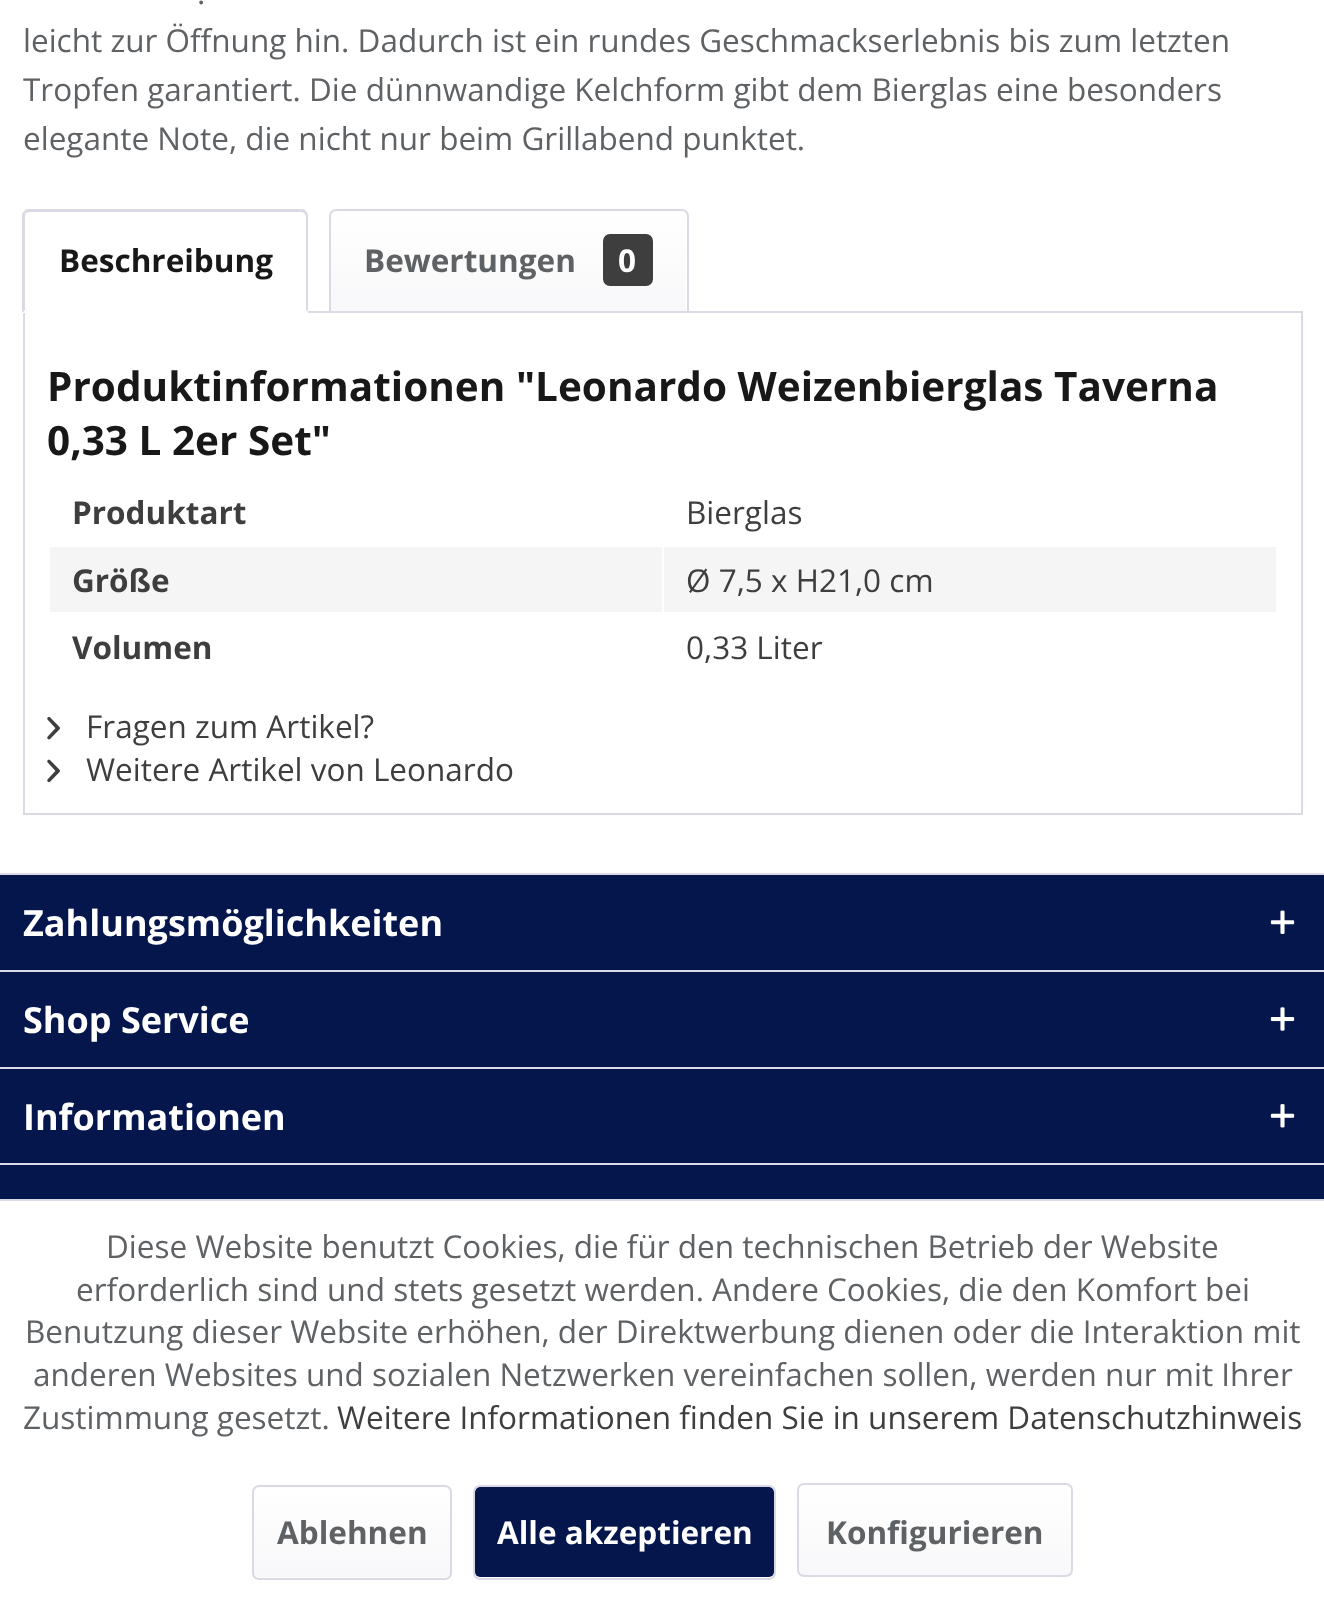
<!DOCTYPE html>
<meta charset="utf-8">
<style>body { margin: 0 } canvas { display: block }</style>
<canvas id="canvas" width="1324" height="1601"></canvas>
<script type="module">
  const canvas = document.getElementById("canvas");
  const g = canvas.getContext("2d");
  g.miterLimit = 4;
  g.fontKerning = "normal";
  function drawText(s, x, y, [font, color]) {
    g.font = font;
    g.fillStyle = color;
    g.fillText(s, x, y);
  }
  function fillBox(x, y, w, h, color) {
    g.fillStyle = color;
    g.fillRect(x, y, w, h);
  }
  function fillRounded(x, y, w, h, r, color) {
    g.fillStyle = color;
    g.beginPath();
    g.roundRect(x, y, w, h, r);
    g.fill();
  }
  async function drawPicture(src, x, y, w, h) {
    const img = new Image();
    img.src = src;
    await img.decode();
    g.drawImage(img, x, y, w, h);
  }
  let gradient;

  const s1 = ["31.5px Open Sans", "#5F6265"];
  const s2 = ["bold 31.5px Open Sans", "#181818"];
  const s3 = ["bold 31.5px Open Sans", "#5F6265"];
  const s4 = ["bold 31.5px Open Sans", "#FFFFFF"];
  const s5 = ["bold 40.5px Open Sans", "#181818"];
  const s6 = ["bold 31.5px Open Sans", "#3E3E3E"];
  const s7 = ["31.5px Open Sans", "#3E3E3E"];
  const s8 = ["bold 36px Open Sans", "#FFFFFF"];

  fillBox(0, 0, 1324, 1601, "#05164D");
  fillBox(0, 0, 1324, 873, "#FFFFFF");
  drawText(".", 197, 4, s1);
  drawText("leicht zur Öffnung hin. Dadurch ist ein rundes Geschmackserlebnis bis zum letzten", 23, 52, s1);
  g.save();
  g.beginPath();
  g.rect(23, 0, 1280, 162);
  g.clip();
  drawText("Tropfen garantiert. Die dünnwandige Kelchform gibt dem Bierglas eine besonders", 23, 101, s1);
  g.restore();
  drawText("elegante Note, die nicht nur beim Grillabend punktet.", 23, 150, s1);
  g.strokeStyle = "#DADAE5";
  g.lineWidth = 2;
  g.strokeRect(24, 312, 1278, 502);
  g.fillStyle = "#FFFFFF";
  g.beginPath();
  g.roundRect(23, 209, 285, 104, [7, 7, 0, 0]);
  g.fill();
  g.fillStyle = "#DADAE5";
  g.beginPath();
  g.moveTo(29, 212);
  g.lineTo(26, 213);
  g.lineTo(24, 211);
  g.lineTo(27, 209);
  g.lineTo(304, 209);
  g.lineTo(306, 211);
  g.lineTo(304, 213);
  g.lineTo(302, 212);
  g.closePath();
  g.fill();
  g.beginPath();
  g.moveTo(306, 211);
  g.bezierCurveTo(307, 212, 308, 214, 308, 216);
  g.lineTo(308, 312);
  g.lineTo(306, 310);
  g.lineTo(306, 216);
  g.lineTo(304, 213);
  g.closePath();
  g.fill();
  g.fillStyle = "#FFFFFF";
  g.beginPath();
  g.moveTo(308, 312);
  g.lineTo(22, 313);
  g.lineTo(25, 310);
  g.lineTo(306, 310);
  g.closePath();
  g.fill();
  g.fillStyle = "#DADAE5";
  g.beginPath();
  g.moveTo(22, 313);
  g.lineTo(22, 214);
  g.lineTo(24, 211);
  g.lineTo(26, 213);
  g.lineTo(25, 216);
  g.lineTo(25, 310);
  g.closePath();
  g.fill();
  drawText("Beschreibung", 59, 272, s2);
  gradient = g.createLinearGradient(509, 211, 509, 311);
  gradient.addColorStop(0, "#FFFFFF");
  gradient.addColorStop(1, "#F8F8FA");
  g.fillStyle = gradient;
  g.beginPath();
  g.roundRect(331, 212, 355, 99, [5, 5, 0, 0]);
  g.fill();
  g.beginPath();
  g.roundRect(330, 210, 358, 102, [6, 6, 0, 0]);
  g.stroke();
  drawText("Bewertungen", 364, 272, s3);
  fillRounded(603, 234, 50, 52, 7, "#3E3E3E");
  drawText("0", 618, 272, s4);
  drawText("Produktinformationen \"Leonardo Weizenbierglas Taverna", 47, 401, s5);
  drawText("0,33 L 2er Set\"", 47, 455, s5);
  drawText("Produktart", 72, 524, s6);
  drawText("Bierglas", 686, 524, s7);
  fillBox(50, 547, 612, 65, "#F5F5F5");
  drawText("Größe", 72, 592, s6);
  fillBox(664, 547, 612, 65, "#F5F5F5");
  drawText("Ø 7,5 x H21,0 cm", 686, 592, s7);
  drawText("Volumen", 72, 659, s6);
  drawText("0,33 Liter", 686, 659, s7);
  await drawPicture("pic1.png", 47, 716, 13, 24);
  drawText("Fragen zum Artikel?", 86, 738, s7);
  await drawPicture("pic2.png", 47, 759, 13, 24);
  drawText("Weitere Artikel von Leonardo", 86, 781, s7);
  fillBox(0, 873, 1324, 2, "#DADAE5");
  drawText("Zahlungsmöglichkeiten", 23, 936, s8);
  await drawPicture("pic3.png", 1270, 910, 25, 24);
  fillBox(0, 970, 1324, 2, "#DADAE5");
  drawText("Shop Service", 23, 1033, s8);
  await drawPicture("pic4.png", 1270, 1007, 25, 24);
  fillBox(0, 1067, 1324, 2, "#DADAE5");
  drawText("Informationen", 23, 1130, s8);
  await drawPicture("pic5.png", 1270, 1104, 25, 24);
  fillBox(0, 1163, 1324, 2, "#DADAE5");
  fillBox(0, 1201, 1324, 400, "#FFFFFF");
  fillBox(0, 1199, 1324, 2, "#DADAE5");
  drawText("Diese Website benutzt Cookies, die für den technischen Betrieb der Website", 106, 1258, s1);
  drawText("erforderlich sind und stets gesetzt werden. Andere Cookies, die den Komfort bei", 76, 1301, s1);
  drawText("Benutzung dieser Website erhöhen, der Direktwerbung dienen oder die Interaktion mit", 25, 1343, s1);
  drawText("anderen Websites und sozialen Netzwerken vereinfachen sollen, werden nur mit Ihrer", 33, 1386, s1);
  drawText("Zustimmung gesetzt.", 23, 1429, s1);
  drawText("Weitere Informationen finden Sie in unserem Datenschutzhinweis", 337, 1429, s7);
  gradient = g.createLinearGradient(352, 1487, 352, 1577);
  gradient.addColorStop(0, "#FFFFFF");
  gradient.addColorStop(1, "#F8F8FA");
  g.fillStyle = gradient;
  g.beginPath();
  g.roundRect(254, 1487, 196, 90, 5);
  g.fill();
  g.beginPath();
  g.roundRect(253, 1486, 198, 93, 6);
  g.stroke();
  drawText("Ablehnen", 277, 1544, s3);
  fillRounded(475, 1487, 299, 90, 5, "#05164D");
  g.beginPath();
  g.roundRect(474, 1486, 301, 93, 6);
  g.stroke();
  drawText("Alle akzeptieren", 497, 1544, s4);
  gradient = g.createLinearGradient(935, 1485, 935, 1575);
  gradient.addColorStop(0, "#FFFFFF");
  gradient.addColorStop(1, "#F8F8FA");
  g.fillStyle = gradient;
  g.beginPath();
  g.roundRect(799, 1485, 272, 90, 5);
  g.fill();
  g.beginPath();
  g.roundRect(798, 1484, 274, 92, 6);
  g.stroke();
  drawText("Konfigurieren", 826, 1544, s3);
</script>
